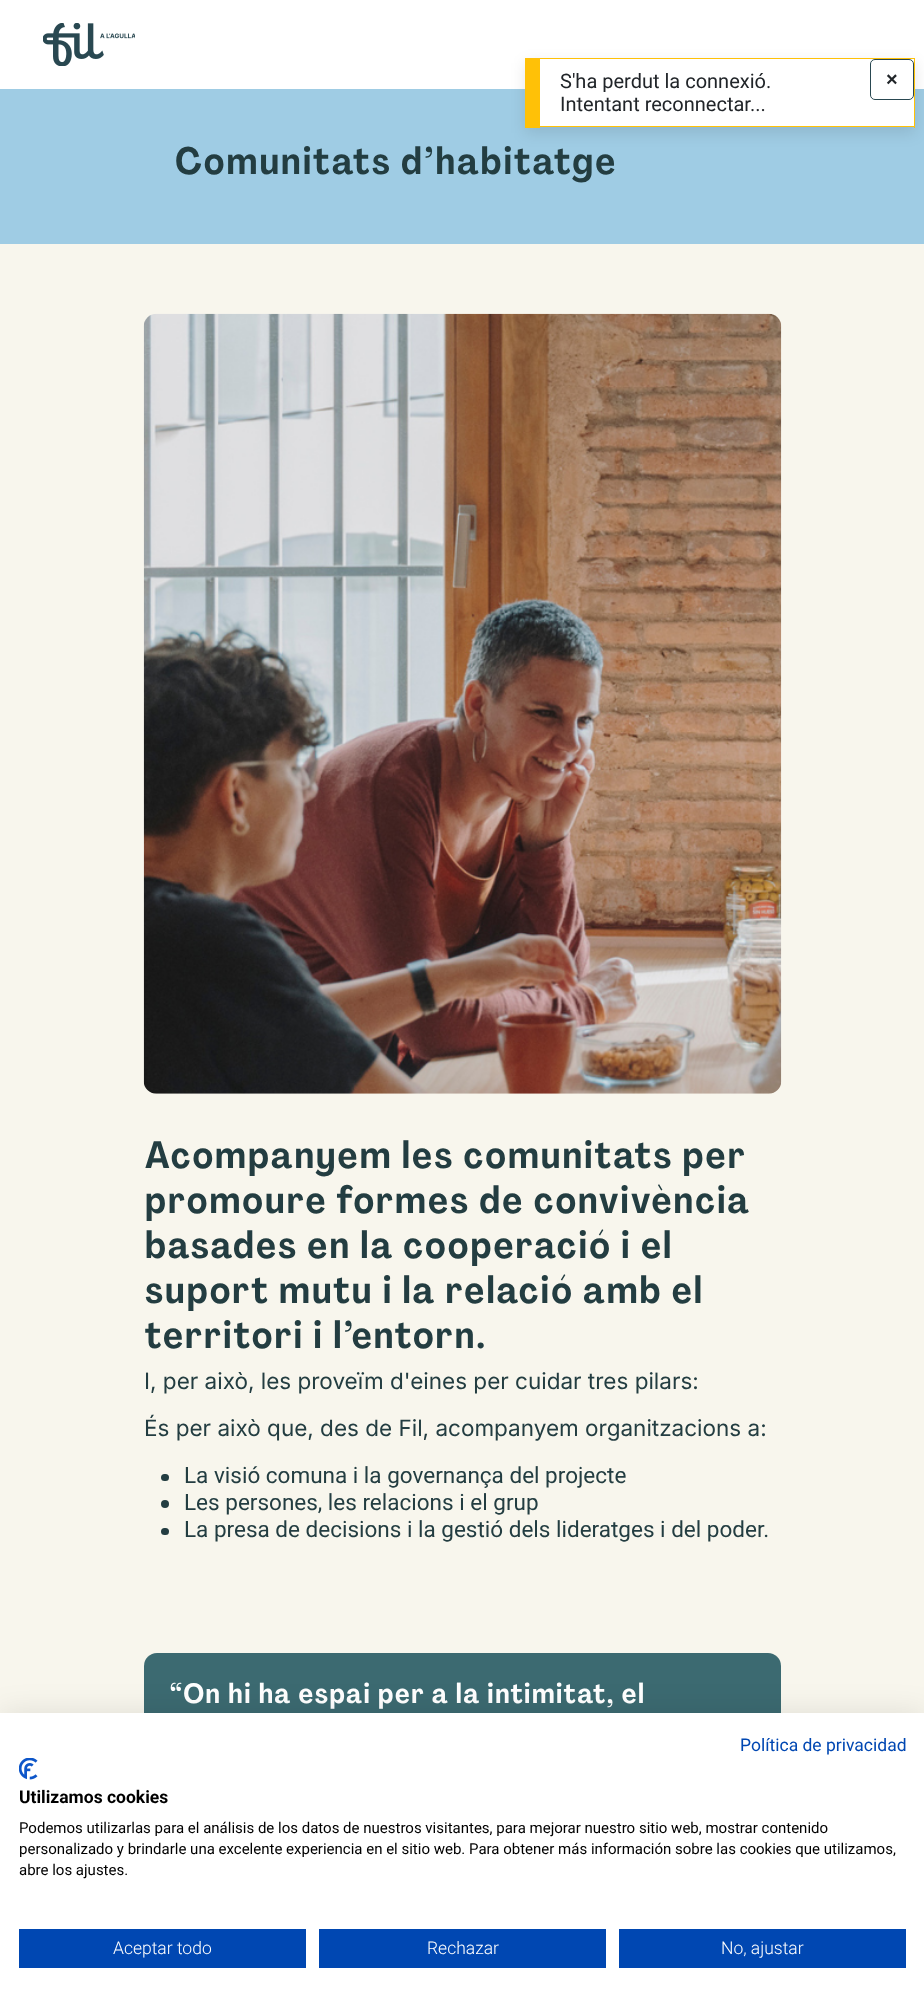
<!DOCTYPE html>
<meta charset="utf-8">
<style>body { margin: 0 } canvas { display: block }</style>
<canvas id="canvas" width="924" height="2001"></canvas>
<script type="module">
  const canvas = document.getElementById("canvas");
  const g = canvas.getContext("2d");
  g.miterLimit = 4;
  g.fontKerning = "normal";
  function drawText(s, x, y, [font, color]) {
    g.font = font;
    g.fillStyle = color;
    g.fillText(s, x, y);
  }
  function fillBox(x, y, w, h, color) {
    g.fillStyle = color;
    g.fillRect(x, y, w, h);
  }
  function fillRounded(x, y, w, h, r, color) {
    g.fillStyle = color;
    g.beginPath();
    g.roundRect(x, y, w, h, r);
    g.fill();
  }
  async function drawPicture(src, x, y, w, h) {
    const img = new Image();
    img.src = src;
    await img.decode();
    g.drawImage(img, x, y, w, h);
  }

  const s1 = ["20px Roboto", "#212529"];
  const s2 = ["bold 20px Liberation Sans", "#212529"];
  const s3 = ["bold 37.5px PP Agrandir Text", "#233D41"];
  const s4 = ["22.5px Inter", "#233D41"];
  const s5 = ["22.5px Roboto", "#233D41"];
  const s6 = ["bold 27.5px PP Agrandir Text", "#FFFFFF"];
  const s7 = ["17.5px Roboto", "#0047B2"];
  const s8 = ["bold 17.5px Roboto", "#000000"];
  const s9 = ["15px Roboto", "#000000"];
  const s10 = ["300 17.5px Roboto", "#FFFFFF"];

  fillBox(0, 0, 924, 2001, "#FFFFFF");
  fillBox(0, 89, 924, 155, "#9FCCE4");
  g.fillStyle = "rgba(0, 0, 0, 0.1)";
  g.filter = "blur(7.5px)";
  g.beginPath();
  g.rect(525, 63, 390, 70);
  g.fill();
  g.filter = "none";
  fillBox(540, 59, 374, 67, "#FFFFFF");
  fillBox(540, 58, 375, 1, "#FFC107");
  fillBox(914, 58, 1, 70, "#FFC107");
  fillBox(540, 126, 375, 1, "#FFC107");
  fillBox(525, 58, 15, 70, "#FFC107");
  drawText("S'ha perdut la connexió.", 560, 88, s1);
  drawText("Intentant reconnectar...", 560, 111, s1);
  g.beginPath();
  g.roundRect(870.5, 59.5, 43, 40, 4.5);
  g.strokeStyle = "#294851";
  g.stroke();
  drawText("×", 886, 86, s2);
  await drawPicture("pic1.png", 43, 23, 92, 43);
  drawText("Comunitats d’habitatge", 174, 174, s3);
  fillBox(0, 244, 924, 1469, "#F8F6ED");
  await drawPicture("pic2.png", 143, 313, 639, 781);
  drawText("Acompanyem les comunitats per", 144, 1168, s3);
  drawText("promoure formes de convivència", 144, 1213, s3);
  drawText("basades en la cooperació i el", 144, 1258, s3);
  drawText("suport mutu i la relació amb el", 144, 1303, s3);
  drawText("territori i l’entorn.", 144, 1348, s3);
  drawText("I, per això, les proveïm d'eines per cuidar tres pilars:", 144, 1389, s4);
  drawText("És per això que, des de Fil, acompanyem organitzacions a:", 144, 1436, s4);
  fillRounded(161, 1474, 8, 7, 3.5, "#233D41");
  drawText("La visió comuna i la governança del projecte", 184, 1483, s5);
  g.beginPath();
  g.arc(165, 1504, 4, 0, Math.PI * 2);
  g.fill();
  drawText("Les persones, les relacions i el grup", 184, 1510, s5);
  fillRounded(161, 1528, 8, 7, 3.5, "#233D41");
  drawText("La presa de decisions i la gestió dels lideratges i del poder.", 184, 1537, s5);
  fillRounded(144, 1653, 637, 183, 13, "#3C6A71");
  drawText("“On hi ha espai per a la intimitat, el", 169, 1703, s6);
  g.fillStyle = "rgba(0, 0, 0, 0.1)";
  g.filter = "blur(15px)";
  g.beginPath();
  g.rect(0, 1713, 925, 288);
  g.fill();
  g.filter = "none";
  fillBox(0, 1713, 924, 288, "#FFFFFF");
  drawText("Política de privacidad", 740, 1751, s7);
  await drawPicture("pic3.png", 19, 1758, 19, 22);
  drawText("Utilizamos cookies", 19, 1803, s8);
  drawText("Podemos utilizarlas para el análisis de los datos de nuestros visitantes, para mejorar nuestro sitio web, mostrar contenido", 19, 1833, s9);
  drawText("personalizado y brindarle una excelente experiencia en el sitio web. Para obtener más información sobre las cookies que utilizamos,", 19, 1854, s9);
  drawText("abre los ajustes.", 19, 1875, s9);
  fillBox(19, 1929, 287, 39, "#0047B2");
  drawText("Aceptar todo", 113, 1954, s10);
  fillBox(319, 1929, 287, 39, "#0047B2");
  drawText("Rechazar", 427, 1954, s10);
  fillBox(619, 1929, 287, 39, "#0047B2");
  drawText("No, ajustar", 721, 1954, s10);
</script>
